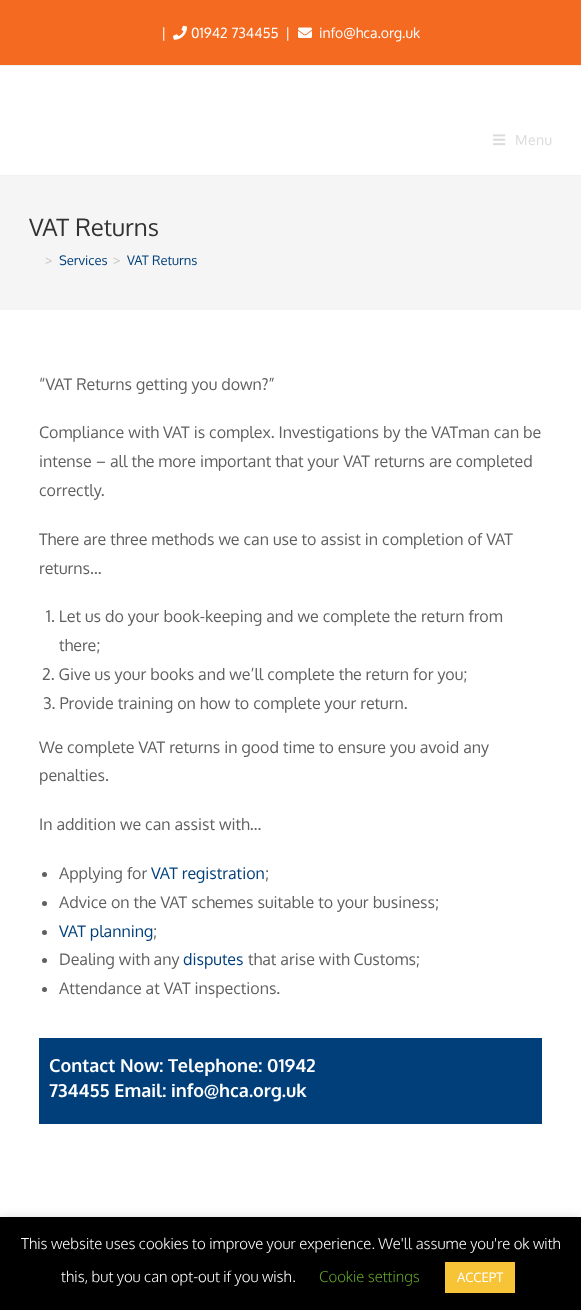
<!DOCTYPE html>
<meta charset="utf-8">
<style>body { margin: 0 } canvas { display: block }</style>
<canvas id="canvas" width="581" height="1310"></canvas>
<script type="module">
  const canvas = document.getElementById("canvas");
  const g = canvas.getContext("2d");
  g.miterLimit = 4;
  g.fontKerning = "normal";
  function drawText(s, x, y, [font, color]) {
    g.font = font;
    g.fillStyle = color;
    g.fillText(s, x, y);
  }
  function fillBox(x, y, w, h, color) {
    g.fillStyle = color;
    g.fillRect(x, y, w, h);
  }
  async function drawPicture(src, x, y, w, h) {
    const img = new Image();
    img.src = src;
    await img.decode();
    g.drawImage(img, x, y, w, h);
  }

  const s1 = ["14px Oxygen", "#FFFFFF"];
  const s2 = ["14px Oxygen", "#DBDBDB"];
  const s3 = ["24px Oxygen", "#333333"];
  const s4 = ["13px Oxygen", "#C6C6C6"];
  const s5 = ["13px Oxygen", "#013F7A"];
  const s6 = ["16px Oxygen", "#606060"];
  const s7 = ["16px Oxygen", "#013F7A"];
  const s8 = ["bold 18px Oxygen", "#FFFFFF"];
  const s9 = ["300 15px Oxygen", "#FFFFFF"];
  const s10 = ["300 15px Oxygen", "#62A329"];
  const s11 = ["13px Oxygen", "#FFFFFF"];

  fillBox(0, 0, 581, 1310, "#FFFFFF");
  fillBox(0, 0, 581, 65, "#F46A21");
  fillBox(0, 65, 581, 1, "#F1F1F1");
  drawText("|", 161, 38, s1);
  await drawPicture("pic1.png", 173, 25, 14, 15);
  drawText("01942 734455", 191, 38, s1);
  drawText("|", 285, 38, s1);
  await drawPicture("pic2.png", 298, 27, 14, 11);
  drawText("info@hca.org.uk", 319, 38, s1);
  fillBox(0, 175, 581, 1, "#F1F1F1");
  await drawPicture("pic3.png", 493, 134, 13, 12);
  g.letterSpacing = "0.5px";
  drawText("Menu", 515, 145, s2);
  fillBox(0, 176, 581, 134, "#F5F5F5");
  g.letterSpacing = "0px";
  drawText("VAT Returns", 29, 236, s3);
  drawText(">", 45, 265, s4);
  drawText("Services", 59, 265, s5);
  drawText(">", 113, 265, s4);
  drawText("VAT Returns", 127, 265, s5);
  drawText("“VAT Returns getting you down?”", 39, 390, s6);
  drawText("Compliance with VAT is complex. Investigations by the VATman can be", 39, 438, s6);
  drawText("intense – all the more important that your VAT returns are completed", 39, 467, s6);
  drawText("correctly.", 39, 496, s6);
  drawText("There are three methods we can use to assist in completion of VAT", 39, 545, s6);
  drawText("returns…", 39, 574, s6);
  drawText("1. Let us do your book-keeping and we complete the return from", 46, 622, s6);
  drawText("there;", 59, 651, s6);
  drawText("2. Give us your books and we’ll complete the return for you;", 42, 680, s6);
  drawText("3. Provide training on how to complete your return.", 43, 709, s6);
  drawText("We complete VAT returns in good time to ensure you avoid any", 39, 753, s6);
  drawText("penalties.", 39, 781, s6);
  drawText("In addition we can assist with…", 39, 830, s6);
  g.beginPath();
  g.arc(44.5, 874.5, 2.5, 0, Math.PI * 2);
  g.fill();
  drawText("Applying for", 59, 879, s6);
  drawText("VAT registration", 151, 879, s7);
  drawText(";", 265, 879, s6);
  g.beginPath();
  g.arc(44.5, 903.5, 2.5, 0, Math.PI * 2);
  g.fill();
  drawText("Advice on the VAT schemes suitable to your business;", 59, 908, s6);
  g.beginPath();
  g.arc(44.5, 932.5, 2.5, 0, Math.PI * 2);
  g.fill();
  drawText("VAT planning", 59, 937, s7);
  drawText(";", 153, 937, s6);
  g.beginPath();
  g.arc(44.5, 960.5, 2.5, 0, Math.PI * 2);
  g.fill();
  drawText("Dealing with any", 59, 965, s6);
  drawText("disputes", 183, 965, s7);
  drawText("that arise with Customs;", 248, 965, s6);
  g.beginPath();
  g.arc(44.5, 989.5, 2.5, 0, Math.PI * 2);
  g.fill();
  drawText("Attendance at VAT inspections.", 59, 994, s6);
  fillBox(39, 1038, 503, 86, "#013F7A");
  drawText("Contact Now: Telephone: 01942", 49, 1072, s8);
  drawText("734455 Email: info@hca.org.uk", 49, 1097, s8);
  g.fillStyle = "rgba(172, 171, 171, 0.3)";
  g.filter = "blur(5px)";
  g.beginPath();
  g.rect(0, 1216, 581, 93);
  g.fill();
  g.filter = "none";
  fillBox(0, 1217, 581, 93, "#000000");
  drawText("This website uses cookies to improve your experience. We'll assume you're ok with", 21, 1249, s9);
  drawText("this, but you can opt-out if you wish.", 61, 1282, s9);
  drawText("Cookie settings", 319, 1282, s10);
  fillBox(445, 1262, 70, 31, "#F7C438");
  drawText("ACCEPT", 457, 1282, s11);
</script>
